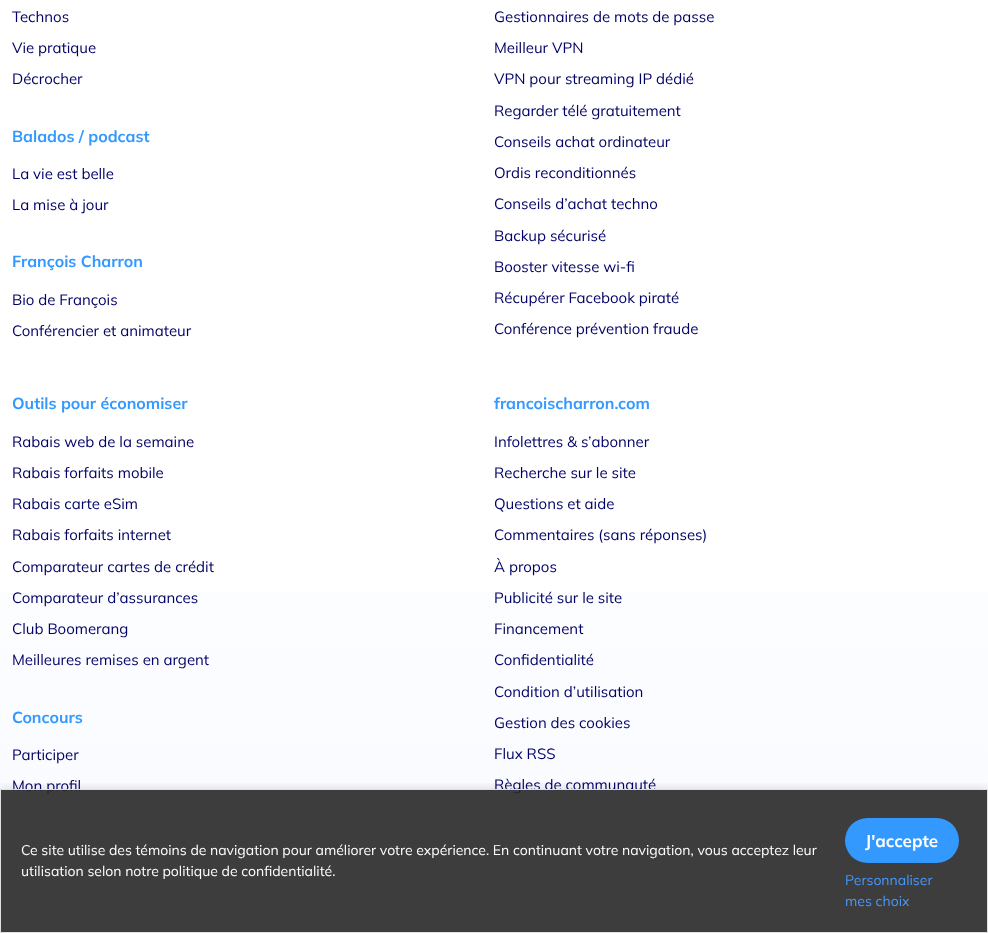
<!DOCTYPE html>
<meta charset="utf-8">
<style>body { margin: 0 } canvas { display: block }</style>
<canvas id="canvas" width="988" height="933"></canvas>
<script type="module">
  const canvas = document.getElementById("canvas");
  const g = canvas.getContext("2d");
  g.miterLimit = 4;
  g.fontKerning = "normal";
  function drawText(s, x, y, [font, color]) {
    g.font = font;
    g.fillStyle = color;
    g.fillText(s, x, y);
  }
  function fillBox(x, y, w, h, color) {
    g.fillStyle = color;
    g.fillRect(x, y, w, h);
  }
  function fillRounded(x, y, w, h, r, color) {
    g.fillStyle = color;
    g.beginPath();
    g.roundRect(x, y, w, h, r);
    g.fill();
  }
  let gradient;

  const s1 = ["200 15px Mulish", "#000066"];
  const s2 = ["200 16px 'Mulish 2'", "#3399FF"];
  const s3 = ["200 14px Mulish", "#FFFFFF"];
  const s4 = ["200 17px 'Mulish 2'", "#FFFFFF"];
  const s5 = ["200 14px Mulish", "#4598FC"];

  fillBox(0, 0, 988, 933, "#FFFFFF");
  gradient = g.createLinearGradient(494, -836, 494, 933);
  gradient.addColorStop(0.7, "#FFFFFF");
  gradient.addColorStop(1, "#F8FAFF");
  g.fillStyle = gradient;
  g.fillRect(0, 592, 988, 340);
  drawText("Technos", 12, 22, s1);
  drawText("Vie pratique", 12, 53, s1);
  drawText("Décrocher", 12, 84, s1);
  drawText("Balados / podcast", 12, 142, s2);
  drawText("La vie est belle", 12, 179, s1);
  drawText("La mise à jour", 12, 210, s1);
  drawText("François Charron", 12, 267, s2);
  drawText("Bio de François", 12, 305, s1);
  drawText("Conférencier et animateur", 12, 336, s1);
  drawText("Gestionnaires de mots de passe", 494, 22, s1);
  drawText("Meilleur VPN", 494, 53, s1);
  drawText("VPN pour streaming IP dédié", 494, 84, s1);
  drawText("Regarder télé gratuitement", 494, 116, s1);
  drawText("Conseils achat ordinateur", 494, 147, s1);
  drawText("Ordis reconditionnés", 494, 178, s1);
  drawText("Conseils d’achat techno", 494, 209, s1);
  drawText("Backup sécurisé", 494, 241, s1);
  drawText("Booster vitesse wi-fi", 494, 272, s1);
  drawText("Récupérer Facebook piraté", 494, 303, s1);
  drawText("Conférence prévention fraude", 494, 334, s1);
  drawText("Outils pour économiser", 12, 409, s2);
  drawText("Rabais web de la semaine", 12, 447, s1);
  drawText("Rabais forfaits mobile", 12, 478, s1);
  drawText("Rabais carte eSim", 12, 509, s1);
  drawText("Rabais forfaits internet", 12, 540, s1);
  drawText("Comparateur cartes de crédit", 12, 572, s1);
  drawText("Comparateur d’assurances", 12, 603, s1);
  drawText("Club Boomerang", 12, 634, s1);
  drawText("Meilleures remises en argent", 12, 665, s1);
  drawText("Concours", 12, 723, s2);
  drawText("Participer", 12, 760, s1);
  drawText("Mon profil", 12, 791, s1);
  drawText("francoischarron.com", 494, 409, s2);
  drawText("Infolettres & s’abonner", 494, 447, s1);
  drawText("Recherche sur le site", 494, 478, s1);
  drawText("Questions et aide", 494, 509, s1);
  drawText("Commentaires (sans réponses)", 494, 540, s1);
  drawText("À propos", 494, 572, s1);
  drawText("Publicité sur le site", 494, 603, s1);
  drawText("Financement", 494, 634, s1);
  drawText("Confidentialité", 494, 665, s1);
  drawText("Condition d’utilisation", 494, 697, s1);
  drawText("Gestion des cookies", 494, 728, s1);
  drawText("Flux RSS", 494, 759, s1);
  drawText("Règles de communauté", 494, 790, s1);
  g.save();
  g.beginPath();
  g.rect(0, 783, 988, 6);
  g.clip();
  g.fillStyle = "rgba(0, 0, 0, 0.1)";
  g.filter = "blur(5px)";
  g.beginPath();
  g.rect(0, 787, 988, 144);
  g.fill();
  g.filter = "none";
  g.restore();
  g.fillStyle = "rgba(40, 40, 40, 0.9)";
  g.beginPath();
  g.rect(0.5, 789.5, 987, 143);
  g.fill();
  g.strokeStyle = "#E0E0E0";
  g.stroke();
  drawText("Ce site utilise des témoins de navigation pour améliorer votre expérience. En continuant votre navigation, vous acceptez leur", 21, 855, s3);
  drawText("utilisation selon notre politique de confidentialité.", 21, 876, s3);
  fillRounded(845, 818, 114, 45, 22.5, "#3399FF");
  drawText("J'accepte", 865, 847, s4);
  drawText("Personnaliser", 845, 885, s5);
  drawText("mes choix", 845, 906, s5);
</script>
